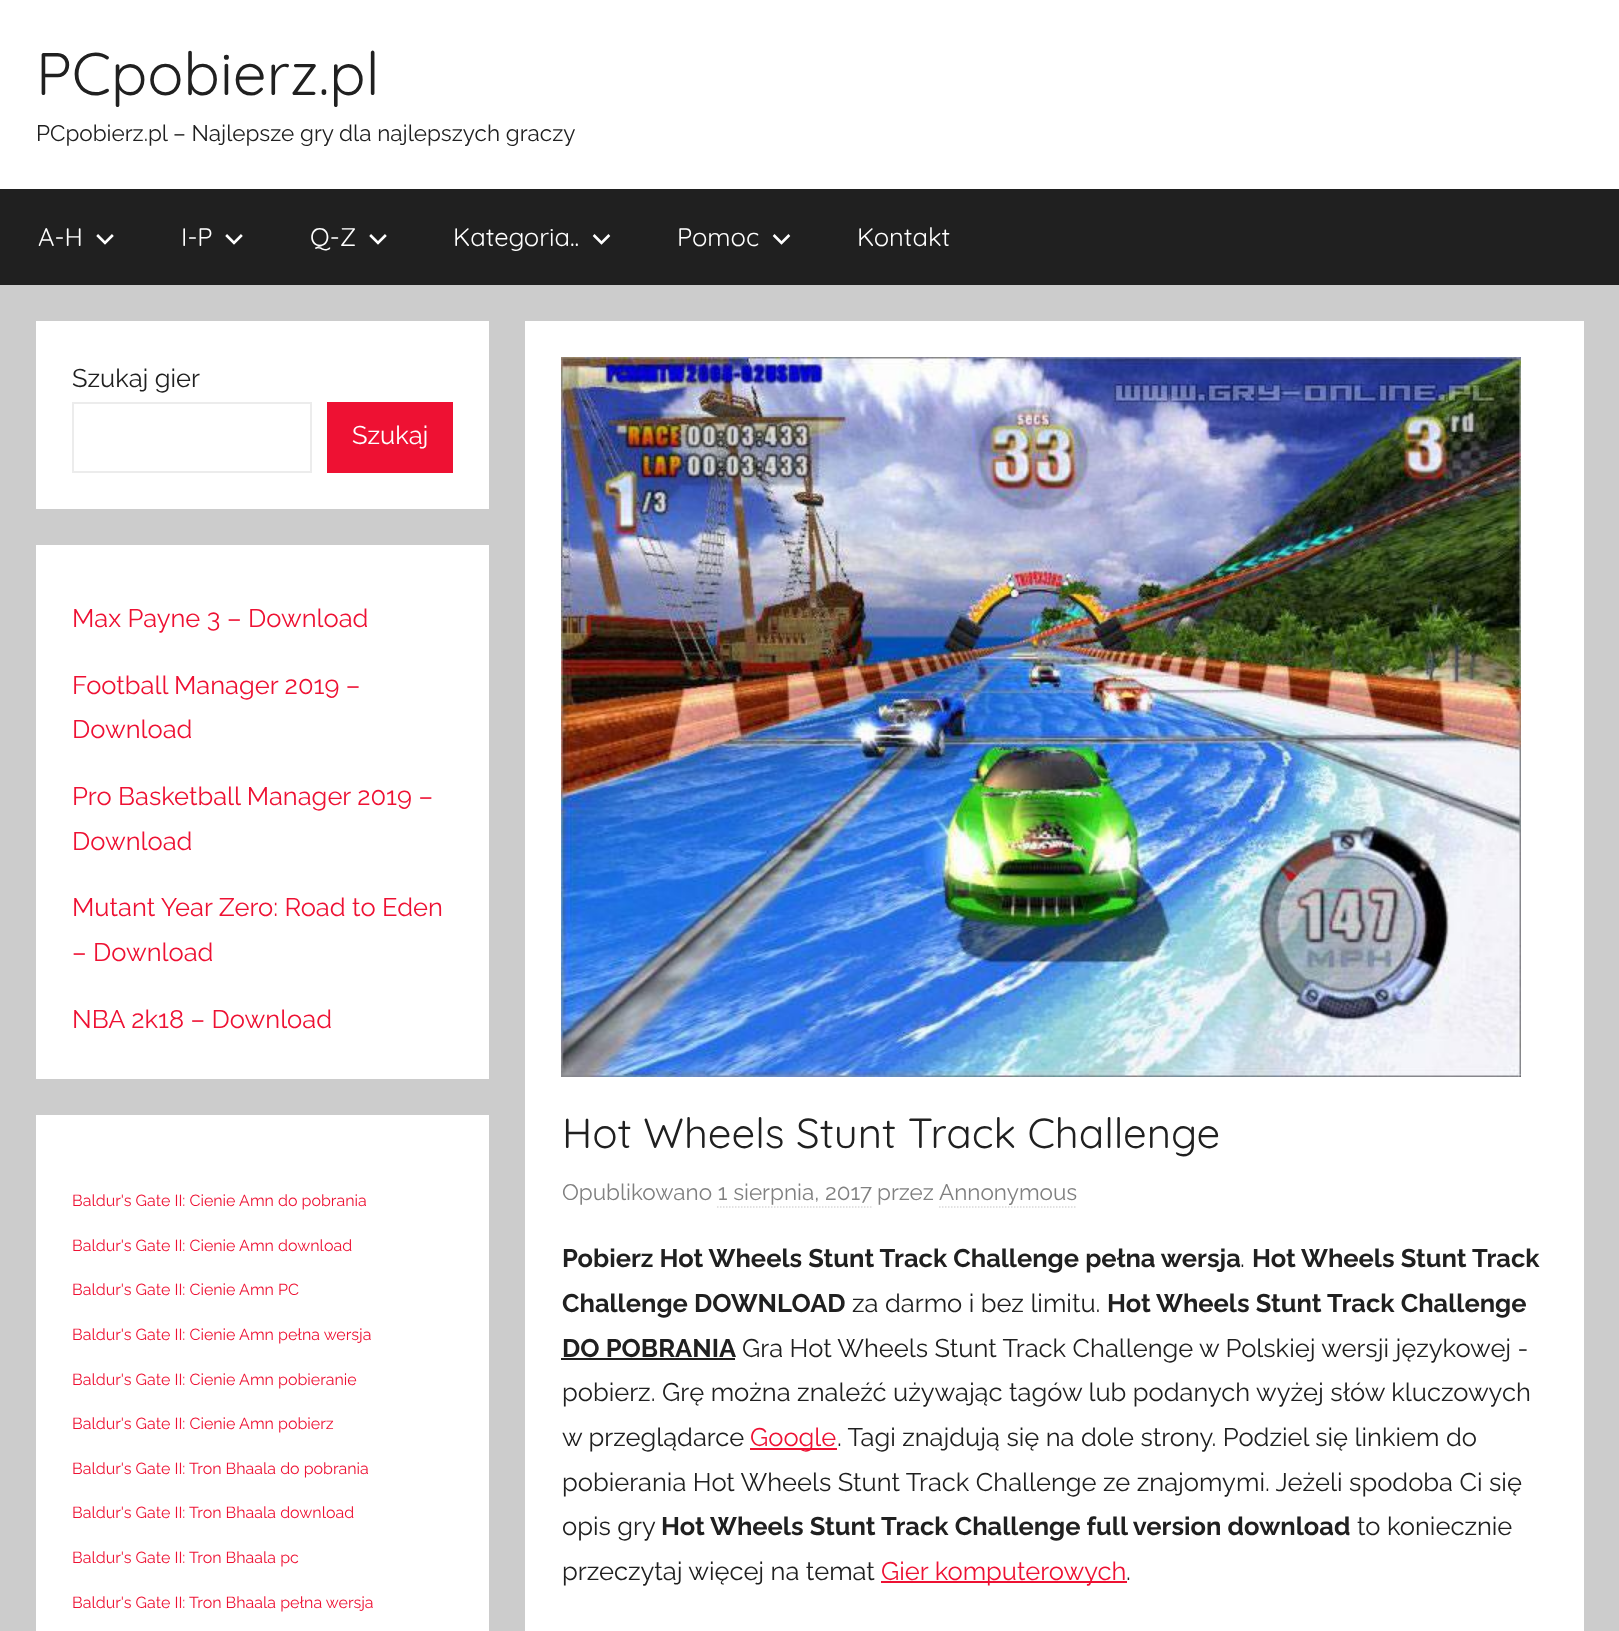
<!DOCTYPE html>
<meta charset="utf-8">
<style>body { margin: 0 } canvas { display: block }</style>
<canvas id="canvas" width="1619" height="1631"></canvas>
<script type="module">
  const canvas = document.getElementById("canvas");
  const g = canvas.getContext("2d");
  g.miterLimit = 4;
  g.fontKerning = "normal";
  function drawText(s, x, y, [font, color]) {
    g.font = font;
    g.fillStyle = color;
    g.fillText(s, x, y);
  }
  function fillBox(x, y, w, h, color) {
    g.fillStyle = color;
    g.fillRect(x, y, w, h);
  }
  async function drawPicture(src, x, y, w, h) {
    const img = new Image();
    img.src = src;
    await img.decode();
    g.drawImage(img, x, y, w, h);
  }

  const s1 = ["60px Quicksand", "#202020"];
  const s2 = ["22.5px Raleway", "#202020"];
  const s3 = ["25.5px Quicksand", "#FFFFFF"];
  const s4 = ["25.5px Raleway", "#202020"];
  const s5 = ["25.5px Raleway", "#FFFFFF"];
  const s6 = ["25.5px Raleway", "#EE1133"];
  const s7 = ["16px Raleway", "#EE1133"];
  const s8 = ["42px Quicksand", "#202020"];
  const s9 = ["22.5px Raleway", "#808080"];
  const s10 = ["bold 25.5px Raleway", "#202020"];

  fillBox(0, 0, 1619, 1631, "#CCCCCC");
  fillBox(0, 0, 1619, 189, "#FFFFFF");
  drawText("PCpobierz.pl", 36, 95, s1);
  drawText("PCpobierz.pl – Najlepsze gry dla najlepszych graczy", 36, 141, s2);
  fillBox(0, 189, 1619, 96, "#202020");
  drawText("A-H", 38, 246, s3);
  await drawPicture("pic1.png", 96, 234, 18, 11);
  drawText("I-P", 181, 246, s3);
  await drawPicture("pic1.png", 225, 234, 18, 11);
  drawText("Q-Z", 310, 246, s3);
  await drawPicture("pic1.png", 369, 234, 18, 11);
  drawText("Kategoria..", 453, 246, s3);
  await drawPicture("pic2.png", 592, 234, 19, 11);
  drawText("Pomoc", 677, 246, s3);
  await drawPicture("pic2.png", 772, 234, 19, 11);
  drawText("Kontakt", 857, 246, s3);
  fillBox(36, 321, 453, 188, "#FFFFFF");
  drawText("Szukaj gier", 72, 387, s4);
  g.strokeStyle = "#ECECEC";
  g.lineWidth = 2;
  g.strokeRect(73, 403, 238, 69);
  fillBox(327, 402, 126, 71, "#EE1133");
  drawText("Szukaj", 352, 444, s5);
  fillBox(36, 545, 453, 534, "#FFFFFF");
  drawText("Max Payne 3 – Download", 72, 627, s6);
  drawText("Football Manager 2019 –", 72, 694, s6);
  drawText("Download", 72, 738, s6);
  drawText("Pro Basketball Manager 2019 –", 72, 805, s6);
  drawText("Download", 72, 850, s6);
  drawText("Mutant Year Zero: Road to Eden", 72, 916, s6);
  drawText("– Download", 72, 961, s6);
  drawText("NBA 2k18 – Download", 72, 1028, s6);
  fillBox(36, 1115, 453, 516, "#FFFFFF");
  drawText("Baldur's Gate II: Cienie Amn do pobrania", 72, 1206, s7);
  drawText("Baldur's Gate II: Cienie Amn download", 72, 1251, s7);
  drawText("Baldur's Gate II: Cienie Amn PC", 72, 1295, s7);
  drawText("Baldur's Gate II: Cienie Amn pełna wersja", 72, 1340, s7);
  drawText("Baldur's Gate II: Cienie Amn pobieranie", 72, 1385, s7);
  drawText("Baldur's Gate II: Cienie Amn pobierz", 72, 1429, s7);
  drawText("Baldur's Gate II: Tron Bhaala do pobrania", 72, 1474, s7);
  drawText("Baldur's Gate II: Tron Bhaala download", 72, 1518, s7);
  drawText("Baldur's Gate II: Tron Bhaala pc", 72, 1563, s7);
  drawText("Baldur's Gate II: Tron Bhaala pełna wersja", 72, 1608, s7);
  fillBox(525, 321, 1059, 1310, "#FFFFFF");
  await drawPicture("pic3.png", 561, 357, 960, 720);
  drawText("Hot Wheels Stunt Track Challenge", 562, 1148, s8);
  drawText("Opublikowano 1 sierpnia, 2017", 562, 1200, s9);
  g.beginPath();
  g.moveTo(717, 1207);
  g.lineTo(871.5, 1207);
  g.strokeStyle = "#D9D9D9";
  g.lineWidth = 1.5;
  g.setLineDash([1.5, 1.5]);
  g.stroke();
  drawText("przez", 877, 1200, s9);
  drawText("Annonymous", 939, 1200, s9);
  g.beginPath();
  g.moveTo(939, 1207);
  g.lineTo(1077, 1207);
  g.stroke();
  drawText("Pobierz Hot Wheels Stunt Track Challenge pełna wersja", 562, 1267, s10);
  drawText(".", 1240, 1267, s4);
  drawText("Hot Wheels Stunt Track", 1252, 1267, s10);
  drawText("Challenge DOWNLOAD", 562, 1312, s10);
  drawText("za darmo i bez limitu.", 852, 1312, s4);
  drawText("Hot Wheels Stunt Track Challenge", 1107, 1312, s10);
  drawText("DO POBRANIA", 562, 1357, s10);
  fillBox(561, 1358, 174, 2, "#202020");
  drawText("Gra Hot Wheels Stunt Track Challenge w Polskiej wersji językowej -", 742, 1357, s4);
  drawText("pobierz. Grę można znaleźć używając tagów lub podanych wyżej słów kluczowych", 562, 1401, s4);
  drawText("w przeglądarce", 562, 1446, s4);
  fillBox(750, 1448, 87, 2, "#EE1133");
  drawText("Google", 750, 1446, s6);
  drawText(". Tagi znajdują się na dole strony. Podziel się linkiem do", 837, 1446, s4);
  drawText("pobierania Hot Wheels Stunt Track Challenge ze znajomymi. Jeżeli spodoba Ci się", 562, 1491, s4);
  drawText("opis gry", 562, 1535, s4);
  drawText("Hot Wheels Stunt Track Challenge full version download", 661, 1535, s10);
  drawText("to koniecznie", 1357, 1535, s4);
  drawText("przeczytaj więcej na temat", 562, 1580, s4);
  fillBox(881, 1581, 246, 2, "#EE1133");
  drawText("Gier komputerowych", 881, 1580, s6);
  drawText(".", 1126, 1580, s4);
</script>
